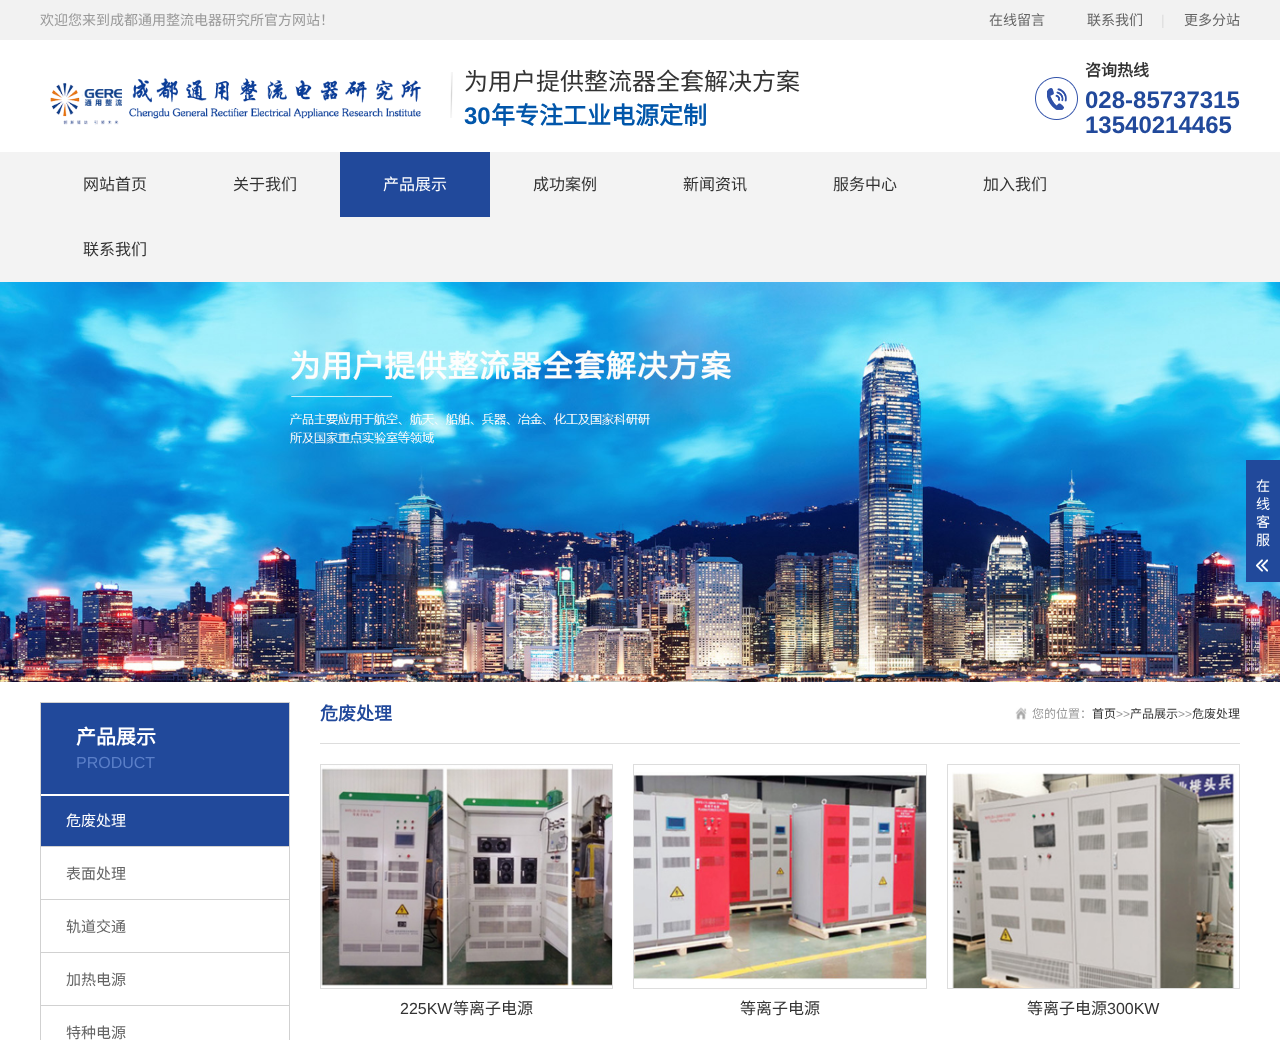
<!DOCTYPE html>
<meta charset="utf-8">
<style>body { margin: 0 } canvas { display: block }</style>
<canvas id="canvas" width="1280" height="1040"></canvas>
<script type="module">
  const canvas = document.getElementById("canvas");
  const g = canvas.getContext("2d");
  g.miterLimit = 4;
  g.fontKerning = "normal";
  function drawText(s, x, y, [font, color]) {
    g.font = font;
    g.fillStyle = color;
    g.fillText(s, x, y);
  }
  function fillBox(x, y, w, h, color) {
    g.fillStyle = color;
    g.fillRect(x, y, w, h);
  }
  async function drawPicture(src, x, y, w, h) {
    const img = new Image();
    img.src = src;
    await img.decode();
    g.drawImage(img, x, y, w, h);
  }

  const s1 = ["14px Noto Sans CJK SC", "#999999"];
  const s2 = ["14px Noto Sans CJK SC", "#646464"];
  const s3 = ["14px Liberation Sans", "#DDDDDD"];
  const s4 = ["24px Noto Sans CJK SC", "#333333"];
  const s5 = ["bold 24px Liberation Sans", "#0156AA"];
  const s6 = ["bold 24px Noto Sans CJK SC", "#0156AA"];
  const s7 = ["bold 16px Noto Sans CJK SC", "#333333"];
  const s8 = ["bold 24px Liberation Sans", "#21499B"];
  const s9 = ["16px Noto Sans CJK SC", "#333333"];
  const s10 = ["16px Noto Sans CJK SC", "#FFFFFF"];
  const s11 = ["14px Noto Sans CJK SC", "#FFFFFF"];
  const s12 = ["bold 20px Noto Sans CJK SC", "#FFFFFF"];
  const s13 = ["16px Liberation Sans", "#5B7FC8"];
  const s14 = ["15px Noto Sans CJK SC", "#FFFFFF"];
  const s15 = ["15px Noto Sans CJK SC", "#646464"];
  const s16 = ["bold 18px Noto Sans CJK SC", "#21499B"];
  const s17 = ["12px Noto Sans CJK SC", "#999999"];
  const s18 = ["12px Noto Sans CJK SC", "#333333"];
  const s19 = ["12px Liberation Sans", "#999999"];
  const s20 = ["16px Liberation Sans", "#333333"];

  fillBox(0, 0, 1280, 1040, "#FFFFFF");
  fillBox(0, 0, 1280, 40, "#F2F2F2");
  drawText("欢迎您来到成都通用整流电器研究所官方网站！", 40, 25, s1);
  drawText("在线留言", 989, 25, s2);
  drawText("联系我们", 1087, 25, s2);
  drawText("|", 1161, 25, s3);
  drawText("更多分站", 1184, 25, s2);
  await drawPicture("pic1.png", 50, 78, 372, 47);
  await drawPicture("pic2.png", 450, 72, 3, 46);
  drawText("为用户提供整流器全套解决方案", 464, 90, s4);
  drawText("30", 464, 124, s5);
  drawText("年专注工业电源定制", 491, 124, s6);
  await drawPicture("pic3.png", 1035, 77, 43, 43);
  drawText("咨询热线", 1085, 76, s7);
  drawText("028-85737315", 1085, 108, s8);
  drawText("13540214465", 1085, 133, s8);
  fillBox(0, 152, 1280, 130, "#F3F3F3");
  drawText("网站首页", 83, 190, s9);
  drawText("关于我们", 233, 190, s9);
  fillBox(340, 152, 150, 65, "#21499B");
  drawText("产品展示", 383, 190, s10);
  drawText("成功案例", 533, 190, s9);
  drawText("新闻资讯", 683, 190, s9);
  drawText("服务中心", 833, 190, s9);
  drawText("加入我们", 983, 190, s9);
  drawText("联系我们", 83, 255, s9);
  await drawPicture("pic4.png", 0, 282, 1280, 400);
  fillBox(1246, 460, 34, 122, "#21499B");
  drawText("在", 1256, 491, s11);
  drawText("线", 1256, 509, s11);
  drawText("客", 1256, 527, s11);
  drawText("服", 1256, 545, s11);
  await drawPicture("pic5.png", 1256, 559, 12, 13);
  g.strokeStyle = "#D1D1D1";
  g.strokeRect(40.5, 702.5, 249, 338);
  fillBox(41, 703, 248, 91, "#21499B");
  drawText("产品展示", 76, 744, s12);
  drawText("PRODUCT", 76, 768, s13);
  fillBox(41, 846, 248, 1, "#D1D1D1");
  fillBox(41, 796, 248, 50, "#21499B");
  drawText("危废处理", 66, 826, s14);
  fillBox(41, 899, 248, 1, "#D1D1D1");
  drawText("表面处理", 66, 879, s15);
  fillBox(41, 952, 248, 1, "#D1D1D1");
  drawText("轨道交通", 66, 932, s15);
  fillBox(41, 1005, 248, 1, "#D1D1D1");
  drawText("加热电源", 66, 985, s15);
  drawText("特种电源", 66, 1038, s15);
  fillBox(320, 743, 920, 1, "#DDDDDD");
  drawText("危废处理", 320, 720, s16);
  await drawPicture("pic6.png", 1015, 707, 12, 13);
  drawText("您的位置：", 1032, 718, s17);
  drawText("首页", 1092, 718, s18);
  drawText(">>", 1116, 718, s19);
  drawText("产品展示", 1130, 718, s18);
  drawText(">>", 1178, 718, s19);
  drawText("危废处理", 1192, 718, s18);
  g.strokeStyle = "#DDDDDD";
  g.strokeRect(320.5, 764.5, 292, 224);
  await drawPicture("pic7.png", 321, 765, 291, 221);
  drawText("225KW", 400, 1014, s20);
  drawText("等离子电源", 453, 1014, s9);
  g.strokeRect(633.5, 764.5, 293, 224);
  await drawPicture("pic8.png", 634, 772, 292, 208);
  drawText("等离子电源", 740, 1014, s9);
  g.strokeRect(947.5, 764.5, 292, 224);
  await drawPicture("pic9.png", 952, 772, 285, 216);
  drawText("等离子电源", 1027, 1014, s9);
  drawText("300KW", 1107, 1014, s20);
</script>
